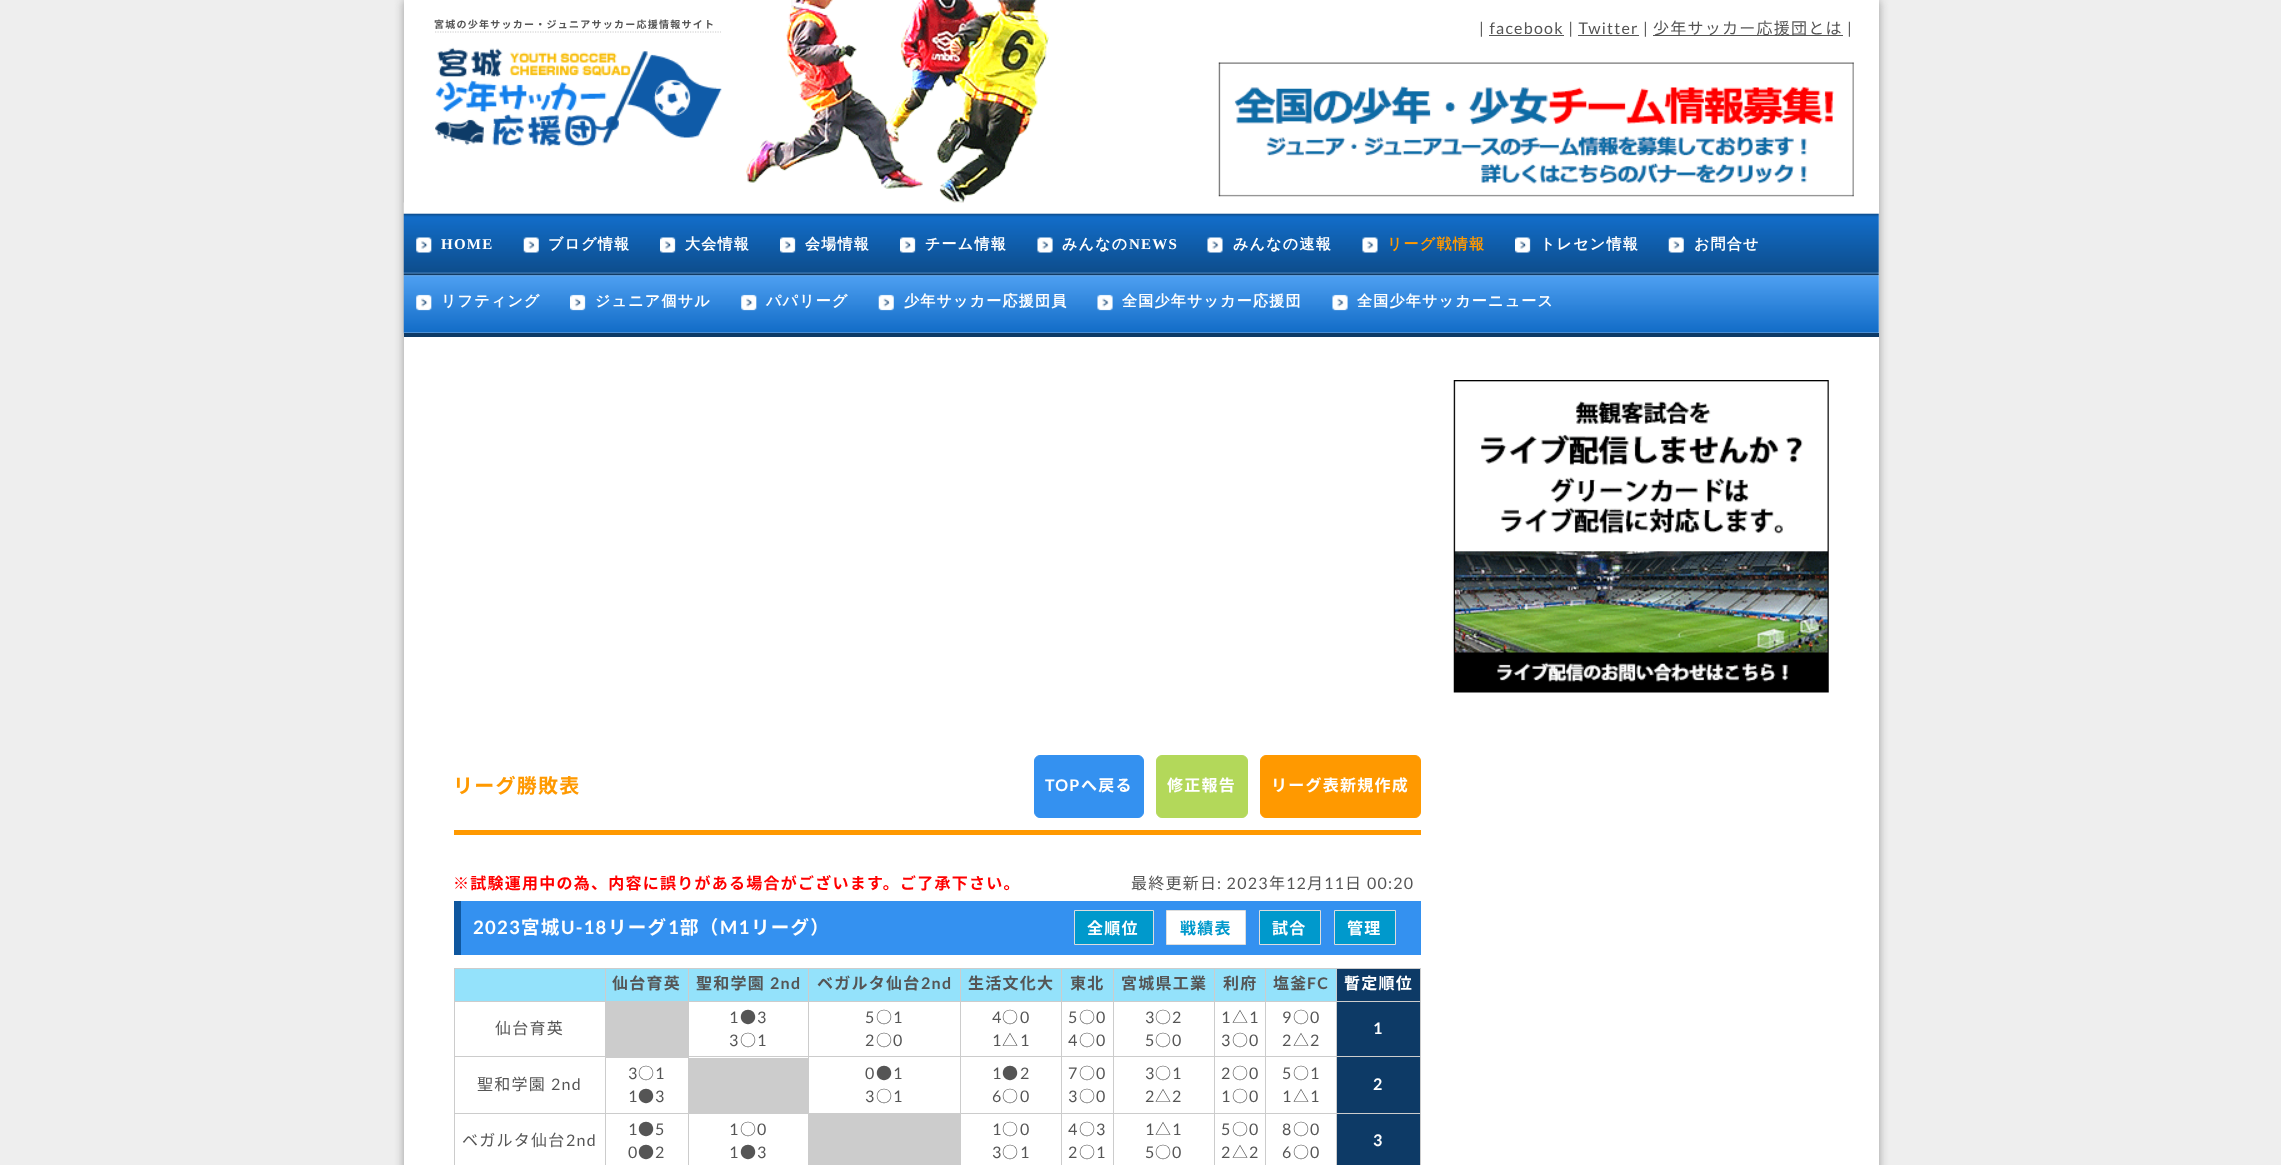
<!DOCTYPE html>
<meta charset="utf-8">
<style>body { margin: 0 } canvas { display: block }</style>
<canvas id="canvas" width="2281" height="1165"></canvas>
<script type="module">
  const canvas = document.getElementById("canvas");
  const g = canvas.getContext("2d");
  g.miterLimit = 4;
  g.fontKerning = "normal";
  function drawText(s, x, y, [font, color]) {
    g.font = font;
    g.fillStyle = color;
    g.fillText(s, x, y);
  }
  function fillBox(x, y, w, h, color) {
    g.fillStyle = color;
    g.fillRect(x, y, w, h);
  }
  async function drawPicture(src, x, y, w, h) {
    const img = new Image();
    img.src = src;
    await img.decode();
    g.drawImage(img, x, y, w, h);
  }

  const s1 = ["bold 10px Noto Sans JP", "#555555"];
  const s2 = ["16px Lato", "#555555"];
  const s3 = ["16px Noto Sans JP", "#555555"];
  const s4 = ["bold 15px Liberation Serif", "#FFFFFF"];
  const s5 = ["bold 15px WenQuanYi Zen Hei", "#FFFFFF"];
  const s6 = ["bold 15px WenQuanYi Zen Hei", "#FF9900"];
  const s7 = ["bold 20px Noto Sans JP", "#FF9900"];
  const s8 = ["bold 16px Lato", "#FFFFFF"];
  const s9 = ["bold 16px Noto Sans JP", "#FFFFFF"];
  const s10 = ["bold 16px Noto Sans JP", "#FF0000"];
  const s11 = ["bold 18.5px Lato", "#FFFFFF"];
  const s12 = ["bold 18.5px Noto Sans JP", "#FFFFFF"];
  const s13 = ["bold 16px Noto Sans JP", "#0099CC"];
  const s14 = ["bold 16px Noto Sans JP", "#555555"];
  const s15 = ["bold 16px Lato", "#555555"];

  fillBox(0, 0, 2281, 1165, "#EEEEEE");
  g.fillStyle = "#999999";
  g.filter = "blur(5px)";
  g.beginPath();
  g.rect(404, 0, 1475, 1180);
  g.fill();
  g.filter = "none";
  fillBox(404, 0, 1475, 1165, "#FFFFFF");
  g.beginPath();
  g.moveTo(435, 32);
  g.lineTo(721, 32);
  g.strokeStyle = "#CCCCCC";
  g.lineWidth = 1.2;
  g.setLineDash([1.25, 1.25]);
  g.stroke();
  g.letterSpacing = "1.25px";
  drawText("宮城の少年サッカー・ジュニアサッカー応援情報サイト", 434, 28, s1);
  await drawPicture("pic1.png", 435, 47, 287, 100);
  await drawPicture("pic4.png", 403, 202, 1476, 132);
  await drawPicture("pic2.png", 746, 0, 303, 203);
  drawText("| facebook | Twitter |", 1479, 34, s2);
  fillBox(1653, 35, 190, 1, "#555555");
  drawText("少年サッカー応援団とは", 1653, 34, s3);
  drawText("|", 1847, 34, s2);
  fillBox(1489, 35, 75, 1, "#555555");
  fillBox(1578, 35, 61, 1, "#555555");
  await drawPicture("pic3.png", 1218, 62, 636, 135);
  fillBox(404, 333, 1475, 4, "#0D3A66");
  await drawPicture("pic5.png", 416, 237, 16, 16);
  drawText("HOME", 441, 249, s4);
  await drawPicture("pic6.png", 523, 237, 16, 16);
  drawText("ブログ情報", 548, 249, s5);
  await drawPicture("pic7.png", 660, 237, 16, 16);
  drawText("大会情報", 685, 249, s5);
  await drawPicture("pic8.png", 780, 237, 16, 16);
  drawText("会場情報", 805, 249, s5);
  await drawPicture("pic9.png", 900, 237, 16, 16);
  drawText("チーム情報", 925, 249, s5);
  await drawPicture("pic10.png", 1037, 237, 16, 16);
  drawText("みんなの", 1062, 249, s5);
  drawText("NEWS", 1129, 249, s4);
  await drawPicture("pic11.png", 1207, 237, 16, 16);
  drawText("みんなの速報", 1233, 249, s5);
  await drawPicture("pic12.png", 1362, 237, 16, 16);
  drawText("リーグ戦情報", 1387, 249, s6);
  await drawPicture("pic13.png", 1515, 237, 16, 16);
  drawText("トレセン情報", 1540, 249, s5);
  await drawPicture("pic14.png", 1668, 237, 16, 16);
  drawText("お問合せ", 1694, 249, s5);
  await drawPicture("pic15.png", 416, 294, 16, 17);
  drawText("リフティング", 441, 306, s5);
  await drawPicture("pic16.png", 570, 294, 16, 17);
  drawText("ジュニア個サル", 595, 306, s5);
  await drawPicture("pic17.png", 741, 294, 16, 17);
  drawText("パパリーグ", 766, 306, s5);
  await drawPicture("pic18.png", 878, 294, 16, 17);
  drawText("少年サッカー応援団員", 904, 306, s5);
  await drawPicture("pic19.png", 1097, 294, 16, 17);
  drawText("全国少年サッカー応援団", 1122, 306, s5);
  await drawPicture("pic19.png", 1332, 294, 16, 17);
  drawText("全国少年サッカーニュース", 1357, 306, s5);
  await drawPicture("pic20.png", 1453, 380, 376, 313);
  fillBox(454, 830, 967, 5, "#FF9900");
  drawText("リーグ勝敗表", 453, 793, s7);
  g.fillStyle = "#3491F0";
  g.beginPath();
  g.roundRect(1034.5, 755.5, 109, 62, 5.5);
  g.fill();
  g.strokeStyle = "#3491F0";
  g.lineWidth = 1;
  g.setLineDash([]);
  g.stroke();
  drawText("TOP", 1045, 791, s8);
  drawText("へ戻る", 1081, 791, s9);
  g.fillStyle = "#B3D85A";
  g.beginPath();
  g.roundRect(1156.5, 755.5, 91, 62, 5.5);
  g.fill();
  g.strokeStyle = "#B3D85A";
  g.stroke();
  drawText("修正報告", 1167, 791, s9);
  g.fillStyle = "#FF9900";
  g.beginPath();
  g.roundRect(1260.5, 755.5, 160, 62, 5.5);
  g.fill();
  g.strokeStyle = "#FF9900";
  g.stroke();
  drawText("リーグ表新規作成", 1271, 791, s9);
  drawText("※試験運用中の為、内容に誤りがある場合がございます。ご了承下さい。", 453, 889, s10);
  drawText("最終更新日", 1131, 889, s3);
  drawText(": 2023", 1217, 889, s2);
  drawText("年", 1269, 889, s3);
  drawText("12", 1286, 889, s2);
  drawText("月", 1307, 889, s3);
  drawText("11", 1324, 889, s2);
  drawText("日", 1345, 889, s3);
  drawText("00:20", 1367, 889, s2);
  fillBox(461, 901, 960, 54, "#3491F0");
  fillBox(454, 901, 7, 54, "#0F579F");
  drawText("2023", 473, 934, s11);
  drawText("宮城", 521, 934, s12);
  drawText("U-18", 561, 934, s11);
  drawText("リーグ", 608, 934, s12);
  drawText("1", 668, 934, s11);
  drawText("部（", 680, 934, s12);
  drawText("M1", 720, 934, s11);
  drawText("リーグ）", 751, 934, s12);
  g.fillStyle = "#0099CC";
  g.beginPath();
  g.rect(1074.5, 910.5, 79, 34);
  g.fill();
  g.strokeStyle = "#DDDDDD";
  g.stroke();
  drawText("全順位", 1087, 934, s9);
  g.beginPath();
  g.rect(1166.5, 910.5, 79, 34);
  g.fill();
  g.stroke();
  drawText("戦績表", 1180, 934, s13);
  g.beginPath();
  g.rect(1259.5, 910.5, 61, 34);
  g.fill();
  g.stroke();
  drawText("試合", 1272, 934, s9);
  g.fillStyle = "#0099CC";
  g.beginPath();
  g.rect(1334.5, 910.5, 61, 34);
  g.fill();
  g.stroke();
  drawText("管理", 1347, 934, s9);
  fillBox(454, 968, 967, 1, "#CCCCCC");
  fillBox(454, 968, 1, 197, "#CCCCCC");
  fillBox(455, 969, 150, 32, "#94E2FB");
  fillBox(605, 1001, 84, 57, "#CCCCCC");
  fillBox(605, 968, 1, 35, "#CCCCCC");
  fillBox(454, 1001, 152, 1, "#CCCCCC");
  fillBox(606, 969, 82, 32, "#94E2FB");
  fillBox(1337, 1002, 83, 111, "#0D3A66");
  fillBox(1336, 1113, 1, 52, "#CCCCCC");
  fillBox(1420, 968, 1, 197, "#CCCCCC");
  fillBox(1336, 1113, 85, 1, "#CCCCCC");
  fillBox(1336, 1056, 1, 58, "#CCCCCC");
  fillBox(1336, 1056, 85, 1, "#CCCCCC");
  fillBox(1336, 1001, 1, 57, "#CCCCCC");
  fillBox(1336, 1001, 85, 1, "#CCCCCC");
  fillBox(1336, 968, 1, 35, "#CCCCCC");
  fillBox(1265, 1113, 1, 52, "#CCCCCC");
  fillBox(1265, 1113, 73, 1, "#CCCCCC");
  fillBox(1265, 1056, 1, 58, "#CCCCCC");
  fillBox(1265, 1056, 73, 1, "#CCCCCC");
  fillBox(1265, 1001, 1, 57, "#CCCCCC");
  fillBox(1265, 1001, 73, 1, "#CCCCCC");
  fillBox(1265, 968, 1, 35, "#CCCCCC");
  fillBox(1214, 1113, 1, 52, "#CCCCCC");
  fillBox(1214, 1113, 52, 1, "#CCCCCC");
  fillBox(1214, 1056, 1, 58, "#CCCCCC");
  fillBox(1214, 1056, 52, 1, "#CCCCCC");
  fillBox(1214, 1001, 1, 57, "#CCCCCC");
  fillBox(1214, 1001, 52, 1, "#CCCCCC");
  fillBox(1214, 968, 1, 35, "#CCCCCC");
  fillBox(1113, 1113, 1, 52, "#CCCCCC");
  fillBox(1113, 1113, 102, 1, "#CCCCCC");
  fillBox(1113, 1056, 1, 58, "#CCCCCC");
  fillBox(1113, 1056, 102, 1, "#CCCCCC");
  fillBox(1113, 1001, 1, 57, "#CCCCCC");
  fillBox(1113, 1001, 102, 1, "#CCCCCC");
  fillBox(1113, 968, 1, 35, "#CCCCCC");
  fillBox(1061, 1113, 1, 52, "#CCCCCC");
  fillBox(1061, 1113, 53, 1, "#CCCCCC");
  fillBox(1061, 1056, 1, 58, "#CCCCCC");
  fillBox(1061, 1056, 53, 1, "#CCCCCC");
  fillBox(1061, 1001, 1, 57, "#CCCCCC");
  fillBox(1061, 1001, 53, 1, "#CCCCCC");
  fillBox(1061, 968, 1, 35, "#CCCCCC");
  fillBox(960, 1113, 1, 52, "#CCCCCC");
  fillBox(960, 1113, 103, 1, "#CCCCCC");
  fillBox(960, 1056, 1, 58, "#CCCCCC");
  fillBox(960, 1056, 103, 1, "#CCCCCC");
  fillBox(960, 1001, 1, 57, "#CCCCCC");
  fillBox(960, 1001, 103, 1, "#CCCCCC");
  fillBox(960, 968, 1, 35, "#CCCCCC");
  fillBox(808, 1113, 1, 52, "#CCCCCC");
  fillBox(808, 1113, 153, 1, "#CCCCCC");
  fillBox(808, 1056, 1, 58, "#CCCCCC");
  fillBox(808, 1056, 153, 1, "#CCCCCC");
  fillBox(808, 1001, 1, 57, "#CCCCCC");
  fillBox(808, 1001, 153, 1, "#CCCCCC");
  fillBox(808, 968, 1, 35, "#CCCCCC");
  fillBox(688, 1001, 121, 1, "#CCCCCC");
  fillBox(688, 968, 1, 35, "#CCCCCC");
  drawText("仙台育英", 612, 989, s14);
  fillBox(689, 969, 119, 32, "#94E2FB");
  drawText("聖和学園", 696, 989, s14);
  drawText("2nd", 770, 989, s15);
  fillBox(809, 969, 151, 32, "#94E2FB");
  drawText("ベガルタ仙台", 817, 989, s14);
  drawText("2nd", 921, 989, s15);
  fillBox(961, 969, 100, 32, "#94E2FB");
  drawText("生活文化大", 968, 989, s14);
  fillBox(1062, 969, 51, 32, "#94E2FB");
  drawText("東北", 1070, 989, s14);
  fillBox(1114, 969, 100, 32, "#94E2FB");
  drawText("宮城県工業", 1121, 989, s14);
  fillBox(1215, 969, 50, 32, "#94E2FB");
  drawText("利府", 1223, 989, s14);
  fillBox(1266, 969, 70, 32, "#94E2FB");
  drawText("塩釜", 1273, 989, s14);
  drawText("FC", 1307, 989, s15);
  fillBox(1337, 969, 83, 32, "#0D3A66");
  drawText("暫定順位", 1344, 989, s9);
  fillBox(605, 1113, 1, 52, "#CCCCCC");
  fillBox(688, 1056, 1, 109, "#CCCCCC");
  fillBox(605, 1113, 84, 1, "#CCCCCC");
  fillBox(605, 1056, 1, 58, "#CCCCCC");
  fillBox(454, 1056, 152, 1, "#CCCCCC");
  drawText("仙台育英", 495, 1034, s3);
  fillBox(688, 1056, 121, 1, "#CCCCCC");
  drawText("1", 729, 1023, s2);
  drawText("●", 740, 1023, s3);
  drawText("3", 757, 1023, s2);
  drawText("3", 729, 1046, s2);
  drawText("○", 740, 1046, s3);
  drawText("1", 757, 1046, s2);
  drawText("5", 865, 1023, s2);
  drawText("○", 876, 1023, s3);
  drawText("1", 893, 1023, s2);
  drawText("2", 865, 1046, s2);
  drawText("○", 876, 1046, s3);
  drawText("0", 893, 1046, s2);
  drawText("4", 992, 1023, s2);
  drawText("○", 1002, 1023, s3);
  drawText("0", 1020, 1023, s2);
  drawText("1", 992, 1046, s2);
  drawText("△", 1002, 1046, s3);
  drawText("1", 1020, 1046, s2);
  drawText("5", 1068, 1023, s2);
  drawText("○", 1079, 1023, s3);
  drawText("0", 1096, 1023, s2);
  drawText("4", 1068, 1046, s2);
  drawText("○", 1079, 1046, s3);
  drawText("0", 1096, 1046, s2);
  drawText("3", 1145, 1023, s2);
  drawText("○", 1155, 1023, s3);
  drawText("2", 1172, 1023, s2);
  drawText("5", 1145, 1046, s2);
  drawText("○", 1155, 1046, s3);
  drawText("0", 1172, 1046, s2);
  drawText("1", 1221, 1023, s2);
  drawText("△", 1232, 1023, s3);
  drawText("1", 1249, 1023, s2);
  drawText("3", 1221, 1046, s2);
  drawText("○", 1232, 1046, s3);
  drawText("0", 1249, 1046, s2);
  drawText("9", 1282, 1023, s2);
  drawText("○", 1293, 1023, s3);
  drawText("0", 1310, 1023, s2);
  drawText("2", 1282, 1046, s2);
  drawText("△", 1293, 1046, s3);
  drawText("2", 1310, 1046, s2);
  drawText("1", 1373, 1034, s8);
  fillBox(454, 1113, 152, 1, "#CCCCCC");
  drawText("聖和学園", 477, 1090, s3);
  drawText("2nd", 551, 1090, s2);
  drawText("3", 628, 1079, s2);
  drawText("○", 638, 1079, s3);
  drawText("1", 655, 1079, s2);
  drawText("1", 628, 1102, s2);
  drawText("●", 638, 1102, s3);
  drawText("3", 655, 1102, s2);
  fillBox(689, 1058, 119, 56, "#CCCCCC");
  drawText("0", 865, 1079, s2);
  drawText("●", 876, 1079, s3);
  drawText("1", 893, 1079, s2);
  drawText("3", 865, 1102, s2);
  drawText("○", 876, 1102, s3);
  drawText("1", 893, 1102, s2);
  drawText("1", 992, 1079, s2);
  drawText("●", 1002, 1079, s3);
  drawText("2", 1020, 1079, s2);
  drawText("6", 992, 1102, s2);
  drawText("○", 1002, 1102, s3);
  drawText("0", 1020, 1102, s2);
  drawText("7", 1068, 1079, s2);
  drawText("○", 1079, 1079, s3);
  drawText("0", 1096, 1079, s2);
  drawText("3", 1068, 1102, s2);
  drawText("○", 1079, 1102, s3);
  drawText("0", 1096, 1102, s2);
  drawText("3", 1145, 1079, s2);
  drawText("○", 1155, 1079, s3);
  drawText("1", 1172, 1079, s2);
  drawText("2", 1145, 1102, s2);
  drawText("△", 1155, 1102, s3);
  drawText("2", 1172, 1102, s2);
  drawText("2", 1221, 1079, s2);
  drawText("○", 1232, 1079, s3);
  drawText("0", 1249, 1079, s2);
  drawText("1", 1221, 1102, s2);
  drawText("○", 1232, 1102, s3);
  drawText("0", 1249, 1102, s2);
  drawText("5", 1282, 1079, s2);
  drawText("○", 1293, 1079, s3);
  drawText("1", 1310, 1079, s2);
  drawText("1", 1282, 1102, s2);
  drawText("△", 1293, 1102, s3);
  drawText("1", 1310, 1102, s2);
  drawText("2", 1373, 1090, s8);
  drawText("ベガルタ仙台", 462, 1146, s3);
  drawText("2nd", 566, 1146, s2);
  drawText("1", 628, 1135, s2);
  drawText("●", 638, 1135, s3);
  drawText("5", 655, 1135, s2);
  drawText("0", 628, 1158, s2);
  drawText("●", 638, 1158, s3);
  drawText("2", 655, 1158, s2);
  drawText("1", 729, 1135, s2);
  drawText("○", 740, 1135, s3);
  drawText("0", 757, 1135, s2);
  drawText("1", 729, 1158, s2);
  drawText("●", 740, 1158, s3);
  drawText("3", 757, 1158, s2);
  fillBox(809, 1114, 151, 51, "#CCCCCC");
  drawText("1", 992, 1135, s2);
  drawText("○", 1002, 1135, s3);
  drawText("0", 1020, 1135, s2);
  drawText("3", 992, 1158, s2);
  drawText("○", 1002, 1158, s3);
  drawText("1", 1020, 1158, s2);
  drawText("4", 1068, 1135, s2);
  drawText("○", 1079, 1135, s3);
  drawText("3", 1096, 1135, s2);
  drawText("2", 1068, 1158, s2);
  drawText("○", 1079, 1158, s3);
  drawText("1", 1096, 1158, s2);
  drawText("1", 1145, 1135, s2);
  drawText("△", 1155, 1135, s3);
  drawText("1", 1172, 1135, s2);
  drawText("5", 1145, 1158, s2);
  drawText("○", 1155, 1158, s3);
  drawText("0", 1172, 1158, s2);
  drawText("5", 1221, 1135, s2);
  drawText("○", 1232, 1135, s3);
  drawText("0", 1249, 1135, s2);
  drawText("2", 1221, 1158, s2);
  drawText("△", 1232, 1158, s3);
  drawText("2", 1249, 1158, s2);
  drawText("8", 1282, 1135, s2);
  drawText("○", 1293, 1135, s3);
  drawText("0", 1310, 1135, s2);
  drawText("6", 1282, 1158, s2);
  drawText("○", 1293, 1158, s3);
  drawText("0", 1310, 1158, s2);
  fillBox(1337, 1114, 83, 51, "#0D3A66");
  drawText("3", 1373, 1146, s8);
</script>
